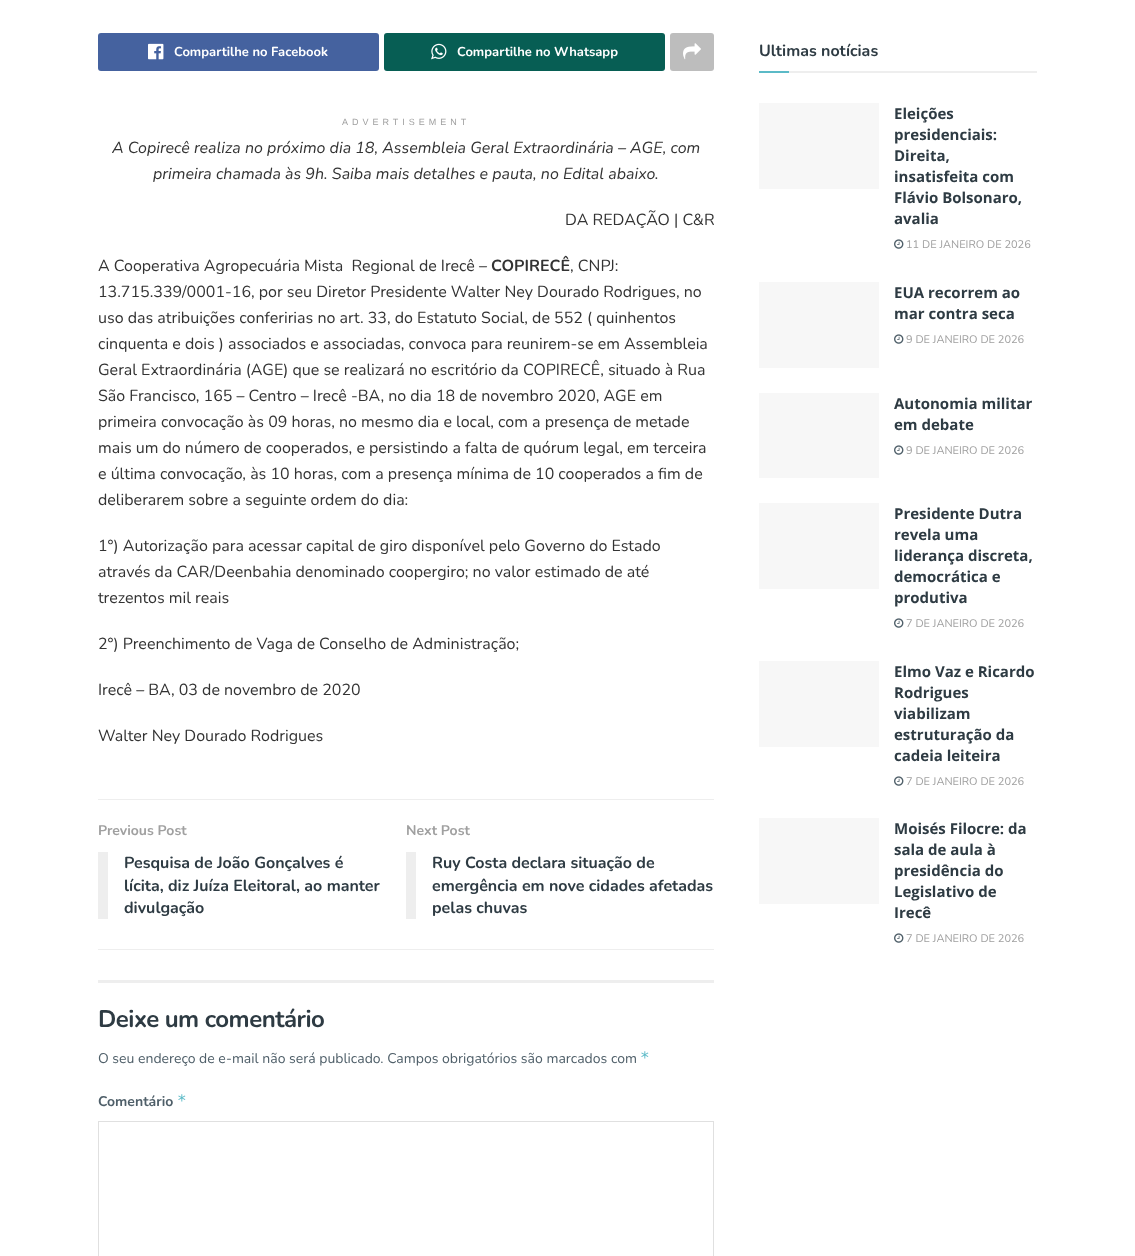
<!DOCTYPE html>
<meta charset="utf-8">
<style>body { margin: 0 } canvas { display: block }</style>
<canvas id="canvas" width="1135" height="1256"></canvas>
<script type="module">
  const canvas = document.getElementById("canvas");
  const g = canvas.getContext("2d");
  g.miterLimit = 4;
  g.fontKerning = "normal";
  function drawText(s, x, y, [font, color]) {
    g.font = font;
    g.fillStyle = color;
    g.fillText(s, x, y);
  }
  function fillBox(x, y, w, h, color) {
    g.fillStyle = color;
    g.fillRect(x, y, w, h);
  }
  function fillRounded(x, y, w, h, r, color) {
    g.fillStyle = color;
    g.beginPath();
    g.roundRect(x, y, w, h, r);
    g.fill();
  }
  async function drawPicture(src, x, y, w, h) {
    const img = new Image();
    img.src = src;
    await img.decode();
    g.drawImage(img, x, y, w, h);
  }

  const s1 = ["bold 13px Nunito", "#FFFFFF"];
  const s2 = ["9px Liberation Sans", "#A0A0A0"];
  const s3 = ["italic 16px Nunito", "#333333"];
  const s4 = ["16px Nunito", "#333333"];
  const s5 = ["bold 16px Nunito", "#333333"];
  const s6 = ["bold 14px Nunito", "#A0A0A0"];
  const s7 = ["bold 16px Nunito", "#2E3B43"];
  const s8 = ["bold 24px Nunito", "#2E3B43"];
  const s9 = ["14px Nunito", "#4F5F69"];
  const s10 = ["16px DejaVu Sans Mono", "#5BBAC7"];
  const s11 = ["bold 14px Nunito", "#4F5F69"];
  const s12 = ["bold 15px Open Sans", "#2E3B43"];
  const s13 = ["11px Nunito", "#A0A0A0"];

  fillBox(0, 0, 1135, 1256, "#FFFFFF");
  fillRounded(98, 33, 281, 38, 3, "#45629F");
  await drawPicture("pic1.png", 148, 43, 16, 17);
  drawText("Compartilhe no Facebook", 174, 56, s1);
  fillRounded(384, 33, 281, 38, 3, "#075E54");
  await drawPicture("pic2.png", 431, 43, 16, 17);
  drawText("Compartilhe no Whatsapp", 457, 56, s1);
  fillRounded(670, 33, 44, 38, 3, "#BDBDBD");
  await drawPicture("pic3.png", 683, 43, 18, 17);
  g.letterSpacing = "4px";
  drawText("ADVERTISEMENT", 342, 125, s2);
  g.letterSpacing = "0px";
  drawText("A Copirecê realiza no próximo dia 18, Assembleia Geral Extraordinária – AGE, com", 112, 153, s3);
  drawText("primeira chamada às 9h. Saiba mais detalhes e pauta, no Edital abaixo.", 153, 179, s3);
  drawText("DA REDAÇÃO | C&R", 565, 225, s4);
  drawText("A Cooperativa Agropecuária Mista  Regional de Irecê –", 98, 271, s4);
  drawText("COPIRECÊ", 491, 271, s5);
  drawText(", CNPJ:", 570, 271, s4);
  drawText("13.715.339/0001-16, por seu Diretor Presidente Walter Ney Dourado Rodrigues, no", 98, 297, s4);
  drawText("uso das atribuições conferirias no art. 33, do Estatuto Social, de 552 ( quinhentos", 98, 323, s4);
  drawText("cinquenta e dois ) associados e associadas, convoca para reunirem-se em Assembleia", 98, 349, s4);
  drawText("Geral Extraordinária (AGE) que se realizará no escritório da COPIRECÊ, situado à Rua", 98, 375, s4);
  drawText("São Francisco, 165 – Centro – Irecê -BA, no dia 18 de novembro 2020, AGE em", 98, 401, s4);
  drawText("primeira convocação às 09 horas, no mesmo dia e local, com a presença de metade", 98, 427, s4);
  drawText("mais um do número de cooperados, e persistindo a falta de quórum legal, em terceira", 98, 453, s4);
  drawText("e última convocação, às 10 horas, com a presença mínima de 10 cooperados a fim de", 98, 479, s4);
  drawText("deliberarem sobre a seguinte ordem do dia:", 98, 505, s4);
  drawText("1°) Autorização para acessar capital de giro disponível pelo Governo do Estado", 98, 551, s4);
  drawText("através da CAR/Deenbahia denominado coopergiro; no valor estimado de até", 98, 577, s4);
  drawText("trezentos mil reais", 98, 603, s4);
  drawText("2°) Preenchimento de Vaga de Conselho de Administração;", 98, 649, s4);
  drawText("Irecê – BA, 03 de novembro de 2020", 98, 695, s4);
  drawText("Walter Ney Dourado Rodrigues", 98, 741, s4);
  fillBox(98, 799, 616, 1, "#EEEEEE");
  fillBox(98, 949, 616, 1, "#EEEEEE");
  drawText("Previous Post", 98, 835, s6);
  fillBox(98, 852, 10, 67, "#EEEEEE");
  drawText("Pesquisa de João Gonçalves é", 124, 868, s7);
  drawText("lícita, diz Juíza Eleitoral, ao manter", 124, 891, s7);
  drawText("divulgação", 124, 913, s7);
  drawText("Next Post", 406, 835, s6);
  fillBox(406, 852, 10, 67, "#EEEEEE");
  drawText("Ruy Costa declara situação de", 432, 868, s7);
  drawText("emergência em nove cidades afetadas", 432, 891, s7);
  drawText("pelas chuvas", 432, 913, s7);
  fillBox(98, 980, 616, 3, "#EEEEEE");
  g.letterSpacing = "-0.5px";
  drawText("Deixe um comentário", 98, 1027, s8);
  g.letterSpacing = "0px";
  drawText("O seu endereço de e-mail não será publicado. Campos obrigatórios são marcados com", 98, 1063, s9);
  drawText("*", 640, 1063, s10);
  drawText("Comentário", 98, 1106, s11);
  drawText("*", 177, 1106, s10);
  g.strokeStyle = "#E0E0E0";
  g.strokeRect(98.5, 1121.5, 615, 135);
  fillBox(789, 71, 248, 2, "#EEEEEE");
  drawText("Ultimas notícias", 759, 56, s7);
  fillBox(759, 71, 30, 2, "#5BBAC7");
  fillBox(759, 103, 120, 86, "#F7F7F7");
  drawText("Eleições", 894, 119, s12);
  drawText("presidenciais:", 894, 140, s12);
  drawText("Direita,", 894, 161, s12);
  drawText("insatisfeita com", 894, 182, s12);
  drawText("Flávio Bolsonaro,", 894, 203, s12);
  drawText("avalia", 894, 224, s12);
  await drawPicture("pic4.png", 894, 239, 10, 10);
  drawText("11 DE JANEIRO DE 2026", 906, 248, s13);
  fillBox(759, 282, 120, 86, "#F7F7F7");
  drawText("EUA recorrem ao", 894, 298, s12);
  drawText("mar contra seca", 894, 319, s12);
  await drawPicture("pic4.png", 894, 334, 10, 10);
  drawText("9 DE JANEIRO DE 2026", 906, 343, s13);
  fillBox(759, 393, 120, 85, "#F7F7F7");
  drawText("Autonomia militar", 894, 409, s12);
  drawText("em debate", 894, 430, s12);
  await drawPicture("pic4.png", 894, 445, 10, 10);
  drawText("9 DE JANEIRO DE 2026", 906, 454, s13);
  fillBox(759, 503, 120, 86, "#F7F7F7");
  drawText("Presidente Dutra", 894, 519, s12);
  drawText("revela uma", 894, 540, s12);
  drawText("liderança discreta,", 894, 561, s12);
  drawText("democrática e", 894, 582, s12);
  drawText("produtiva", 894, 603, s12);
  await drawPicture("pic4.png", 894, 618, 10, 10);
  drawText("7 DE JANEIRO DE 2026", 906, 627, s13);
  fillBox(759, 661, 120, 86, "#F7F7F7");
  drawText("Elmo Vaz e Ricardo", 894, 677, s12);
  drawText("Rodrigues", 894, 698, s12);
  drawText("viabilizam", 894, 719, s12);
  drawText("estruturação da", 894, 740, s12);
  drawText("cadeia leiteira", 894, 761, s12);
  await drawPicture("pic4.png", 894, 776, 10, 10);
  drawText("7 DE JANEIRO DE 2026", 906, 785, s13);
  fillBox(759, 818, 120, 86, "#F7F7F7");
  drawText("Moisés Filocre: da", 894, 834, s12);
  drawText("sala de aula à", 894, 855, s12);
  drawText("presidência do", 894, 876, s12);
  drawText("Legislativo de", 894, 897, s12);
  drawText("Irecê", 894, 918, s12);
  await drawPicture("pic4.png", 894, 933, 10, 10);
  drawText("7 DE JANEIRO DE 2026", 906, 942, s13);
</script>
